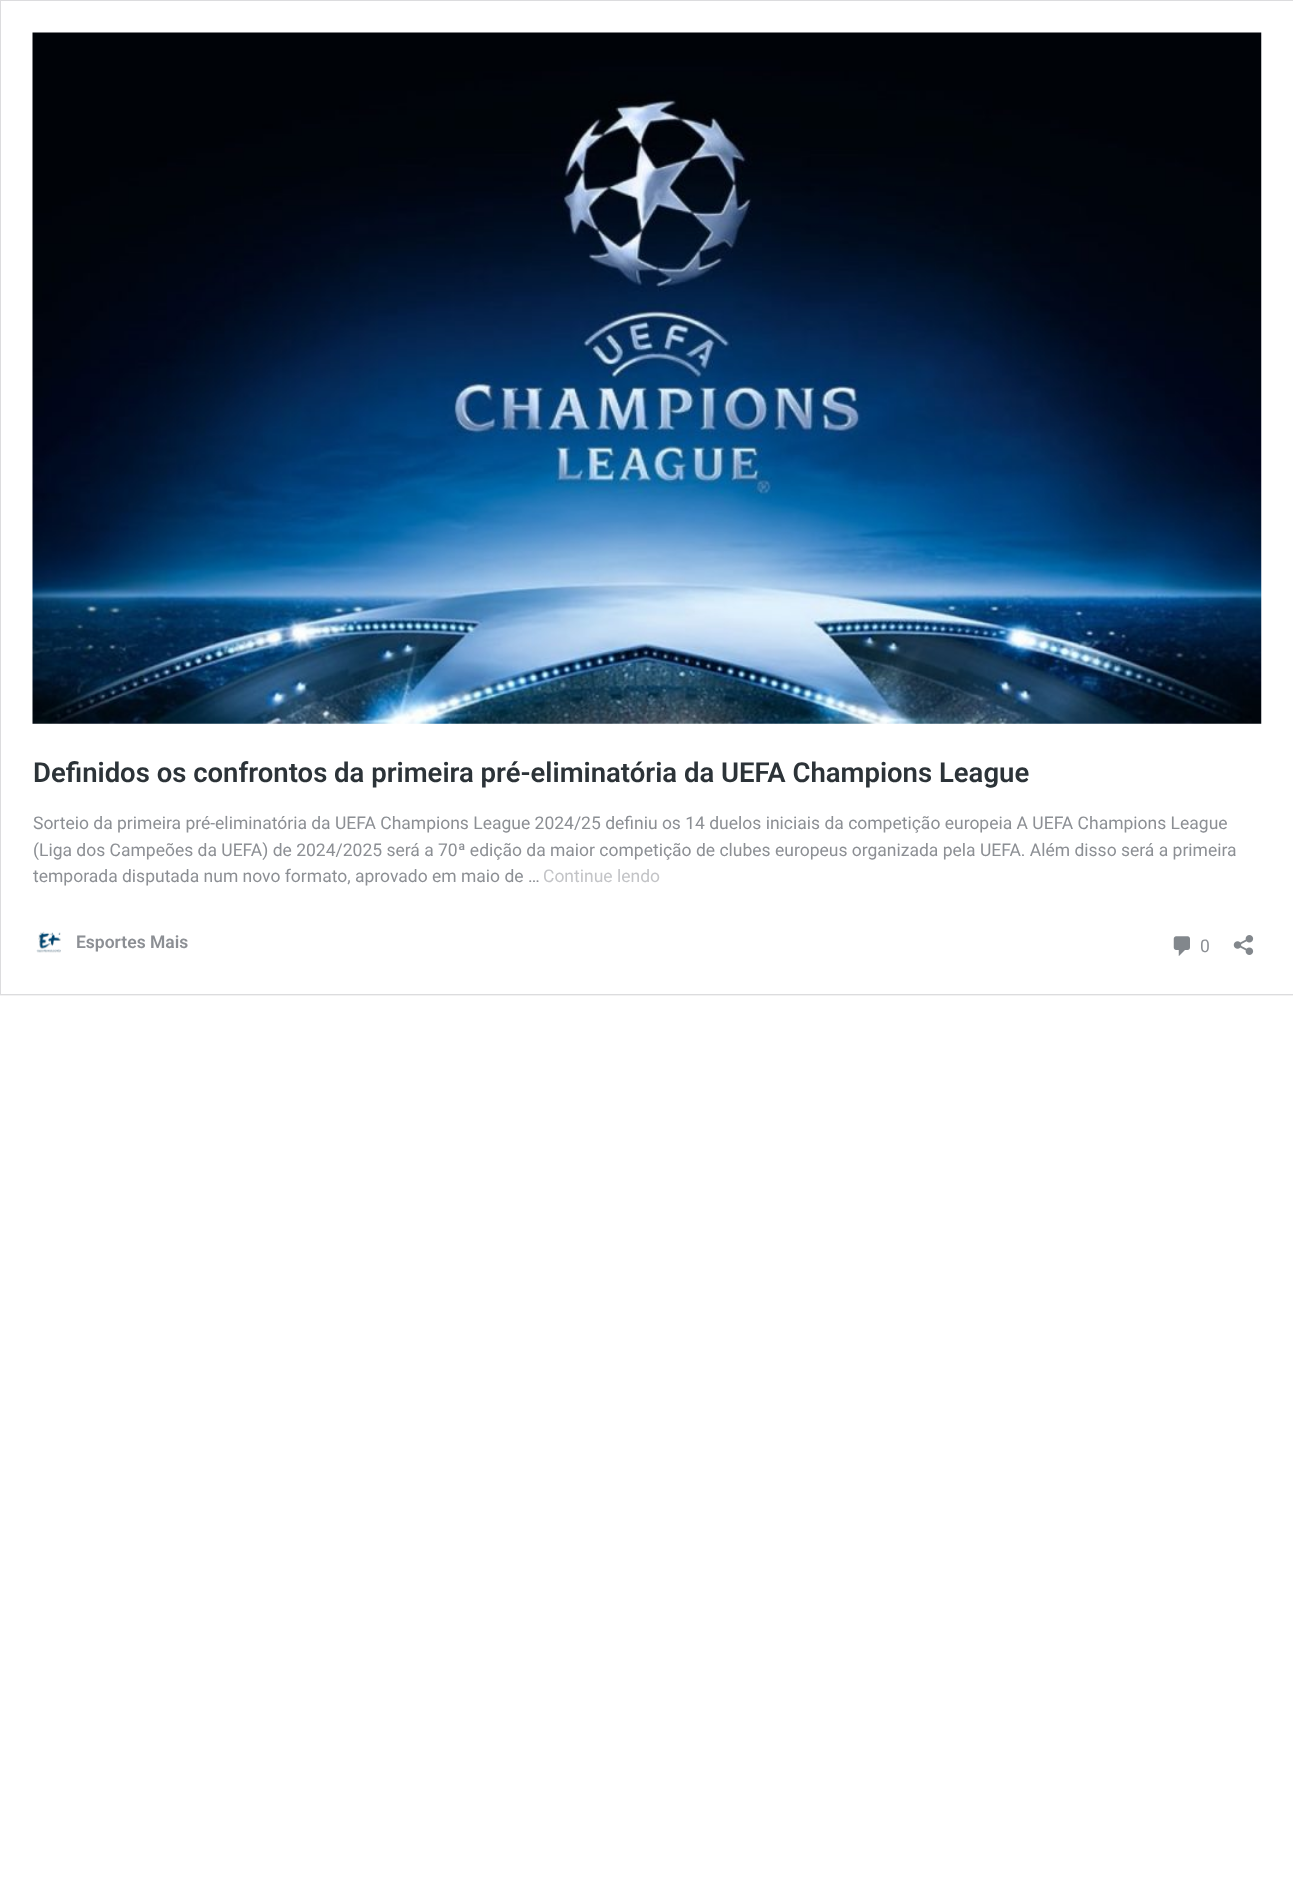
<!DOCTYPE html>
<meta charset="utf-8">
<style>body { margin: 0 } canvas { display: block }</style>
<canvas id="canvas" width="1293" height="1891"></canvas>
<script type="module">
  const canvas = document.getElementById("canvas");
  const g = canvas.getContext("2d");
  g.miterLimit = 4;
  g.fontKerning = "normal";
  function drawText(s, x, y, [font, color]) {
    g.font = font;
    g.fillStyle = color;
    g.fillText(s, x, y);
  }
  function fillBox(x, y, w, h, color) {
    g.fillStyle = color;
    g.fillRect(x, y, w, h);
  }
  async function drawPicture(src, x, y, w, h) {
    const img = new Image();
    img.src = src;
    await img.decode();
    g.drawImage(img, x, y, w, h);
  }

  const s1 = ["600 27.5px Roboto", "#2C3338"];
  const s2 = ["17.5px Roboto", "#8C8F94"];
  const s3 = ["17.5px Roboto", "#C3C4C7"];
  const s4 = ["600 17.5px Roboto", "#8C8F94"];

  fillBox(0, 0, 1293, 1891, "#FFFFFF");
  g.save();
  g.beginPath();
  g.rect(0, 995, 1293, 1);
  g.clip();
  g.fillStyle = "rgba(0, 0, 0, 0.05)";
  g.filter = "blur(0.5px)";
  g.beginPath();
  g.rect(0, 1, 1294, 995);
  g.fill();
  g.filter = "none";
  g.restore();
  g.strokeStyle = "#DCDCDE";
  g.strokeRect(0.5, 0.5, 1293, 994);
  await drawPicture("pic1.png", 32, 32, 1230, 692);
  drawText("Definidos os confrontos da primeira pré-eliminatória da UEFA Champions League", 33, 782, s1);
  drawText("Sorteio da primeira pré-eliminatória da UEFA Champions League 2024/25 definiu os 14 duelos iniciais da competição europeia A UEFA Champions League", 33, 829, s2);
  drawText("(Liga dos Campeões da UEFA) de 2024/2025 será a 70ª edição da maior competição de clubes europeus organizada pela UEFA. Além disso será a primeira", 33, 856, s2);
  drawText("temporada disputada num novo formato, aprovado em maio de …", 33, 882, s2);
  drawText("Continue lendo", 543, 882, s3);
  await drawPicture("pic2.png", 36, 931, 25, 22);
  drawText("Esportes Mais", 76, 948, s4);
  await drawPicture("pic3.png", 1173, 936, 17, 20);
  drawText("0", 1200, 952, s2);
  await drawPicture("pic4.png", 1233, 935, 21, 20);
</script>
